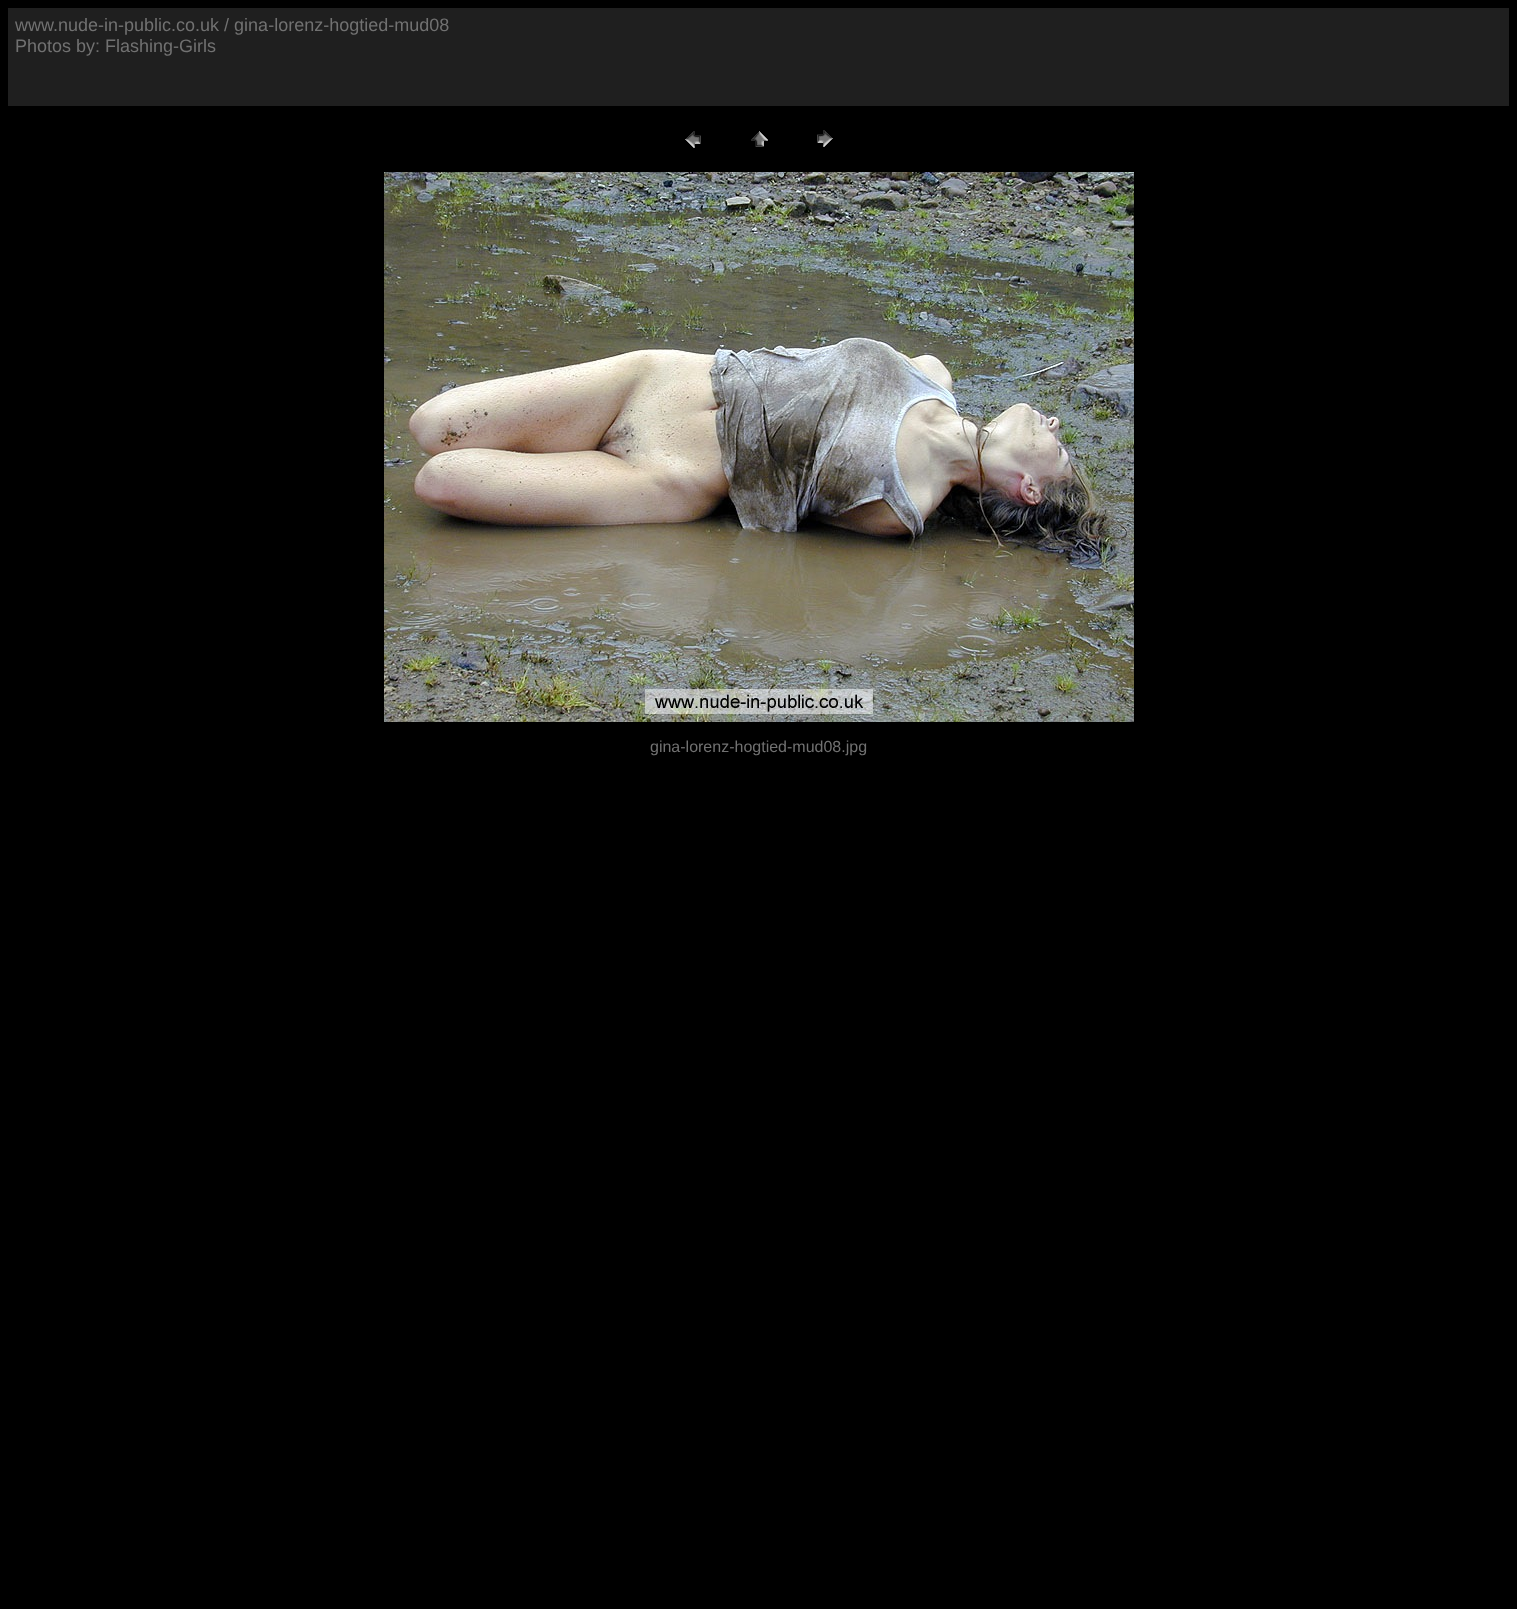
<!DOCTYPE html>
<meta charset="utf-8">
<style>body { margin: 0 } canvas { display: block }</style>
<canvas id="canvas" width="1517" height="1609"></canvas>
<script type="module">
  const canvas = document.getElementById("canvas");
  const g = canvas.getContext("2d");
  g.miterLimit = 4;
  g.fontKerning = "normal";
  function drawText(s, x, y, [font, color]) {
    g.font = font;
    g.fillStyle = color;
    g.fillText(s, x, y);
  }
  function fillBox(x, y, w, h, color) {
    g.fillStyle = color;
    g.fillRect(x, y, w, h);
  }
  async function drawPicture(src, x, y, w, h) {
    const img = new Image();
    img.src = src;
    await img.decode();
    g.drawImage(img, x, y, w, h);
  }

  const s1 = ["18px Liberation Sans", "#717171"];
  const s2 = ["16px Liberation Sans", "#717171"];

  fillBox(0, 0, 1517, 1609, "#000000");
  fillBox(8, 8, 1501, 98, "#1F1F1F");
  drawText("www.nude-in-public.co.uk / gina-lorenz-hogtied-mud08", 15, 31, s1);
  drawText("Photos by: Flashing-Girls", 15, 52, s1);
  await drawPicture("pic1.png", 685, 131, 16, 17);
  await drawPicture("pic2.png", 751, 131, 17, 16);
  await drawPicture("pic3.png", 817, 130, 16, 17);
  await drawPicture("pic4.png", 384, 172, 750, 550);
  drawText("gina-lorenz-hogtied-mud08.jpg", 650, 752, s2);
</script>
